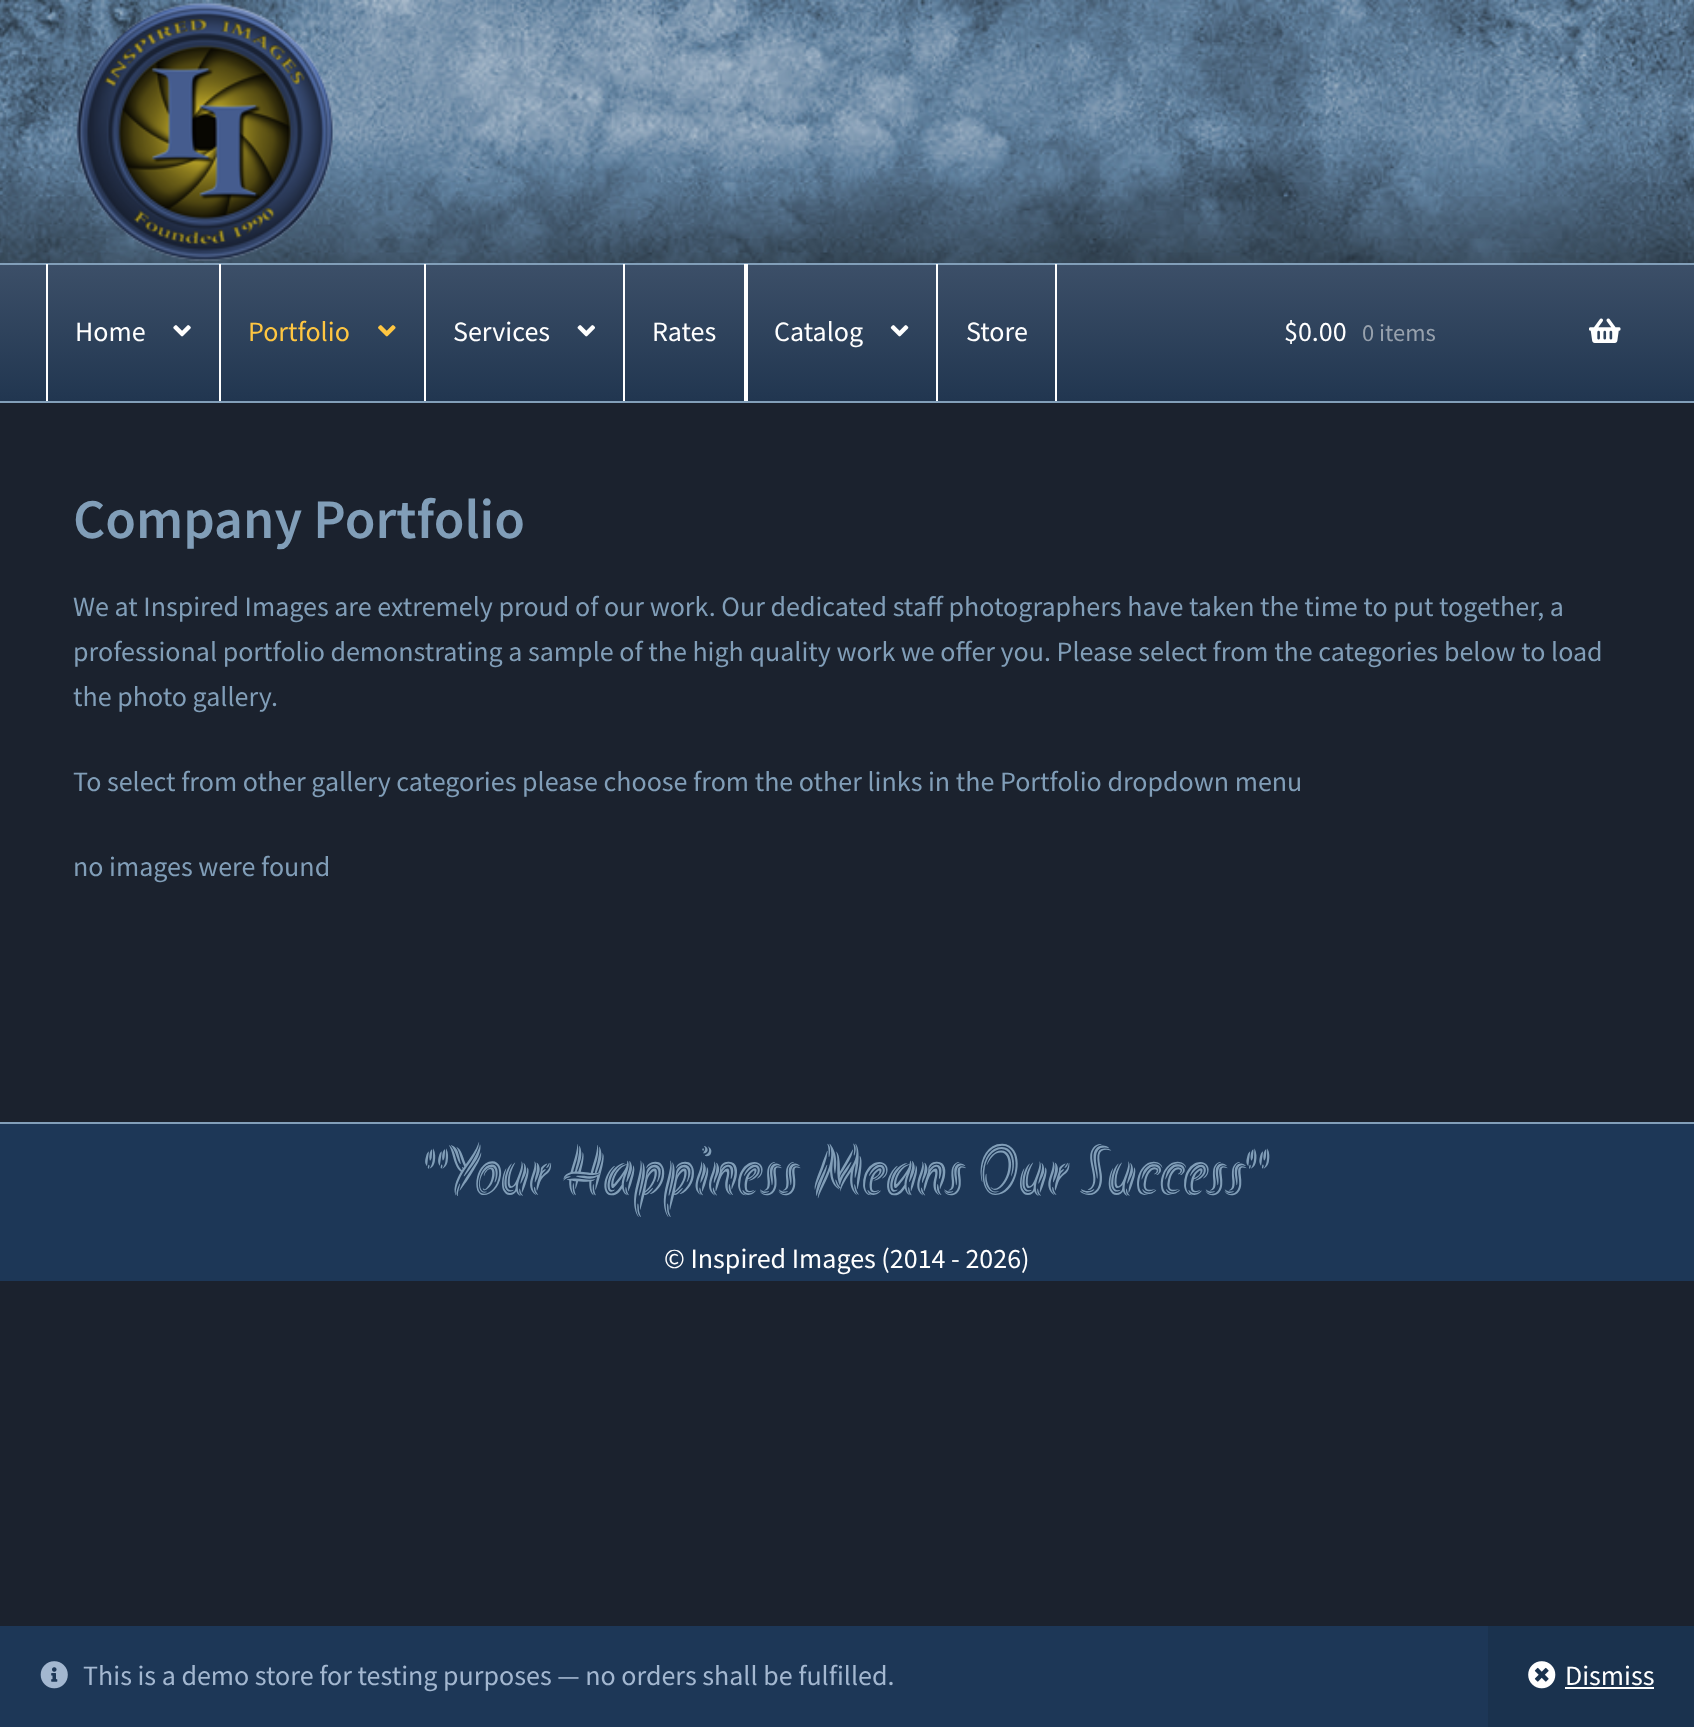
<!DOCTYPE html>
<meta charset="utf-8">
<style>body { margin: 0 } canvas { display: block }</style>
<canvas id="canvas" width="1694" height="1727"></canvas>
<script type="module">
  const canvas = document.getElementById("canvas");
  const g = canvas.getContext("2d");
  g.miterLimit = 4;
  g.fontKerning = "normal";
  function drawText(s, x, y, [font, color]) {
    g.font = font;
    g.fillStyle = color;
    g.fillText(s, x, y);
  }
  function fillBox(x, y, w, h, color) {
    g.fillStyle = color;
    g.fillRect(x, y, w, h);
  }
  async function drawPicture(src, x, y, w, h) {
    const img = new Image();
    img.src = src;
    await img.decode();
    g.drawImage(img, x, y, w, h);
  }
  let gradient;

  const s1 = ["28px Source Sans Pro", "#FFFFFF"];
  const s2 = ["28px Source Sans Pro", "#FFC641"];
  const s3 = ["24.5px Source Sans Pro", "#97A1AD"];
  const s4 = ["600 56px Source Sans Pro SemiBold", "#819EB8"];
  const s5 = ["28px Source Sans Pro", "#819EB8"];
  const s6 = ["70px Akronim", "#819EB8"];
  const s7 = ["28px Source Sans Pro", "#A3B7D0"];

  fillBox(0, 0, 1694, 1727, "#1B222E");
  await drawPicture("pic1.png", 0, 0, 1694, 263);
  await drawPicture("pic2.png", 75, 2, 260, 259);
  gradient = g.createLinearGradient(847, 264, 847, 401);
  gradient.addColorStop(0, "#3C4F68");
  gradient.addColorStop(1, "#213650");
  g.fillStyle = gradient;
  g.fillRect(0, 265, 1694, 136);
  fillBox(0, 263, 1694, 2, "#829FB9");
  fillBox(0, 401, 1694, 2, "#829FB9");
  fillBox(219, 264, 2, 137, "#FFFFFF");
  fillBox(46, 264, 2, 137, "#FFFFFF");
  drawText("Home", 75, 341, s1);
  await drawPicture("pic3.png", 173, 325, 18, 12);
  fillBox(424, 264, 2, 137, "#FFFFFF");
  drawText("Portfolio", 248, 341, s2);
  await drawPicture("pic4.png", 378, 325, 18, 12);
  fillBox(623, 264, 2, 137, "#FFFFFF");
  drawText("Services", 453, 341, s1);
  await drawPicture("pic5.png", 577, 325, 18, 12);
  fillBox(744, 264, 4, 137, "#FFFFFF");
  drawText("Rates", 652, 341, s1);
  fillBox(936, 264, 2, 137, "#FFFFFF");
  drawText("Catalog", 774, 341, s1);
  await drawPicture("pic6.png", 890, 325, 19, 12);
  fillBox(1055, 264, 2, 137, "#FFFFFF");
  drawText("Store", 966, 341, s1);
  drawText("$0.00", 1284, 341, s1);
  drawText("0 items", 1362, 341, s3);
  await drawPicture("pic7.png", 1589, 318, 32, 25);
  drawText("Company Portfolio", 73, 538, s4);
  drawText("We at Inspired Images are extremely proud of our work. Our dedicated staff photographers have taken the time to put together, a", 73, 616, s5);
  drawText("professional portfolio demonstrating a sample of the high quality work we offer you. Please select from the categories below to load", 73, 661, s5);
  drawText("the photo gallery.", 73, 706, s5);
  drawText("To select from other gallery categories please choose from the other links in the Portfolio dropdown menu", 73, 791, s5);
  drawText("no images were found", 73, 876, s5);
  fillBox(0, 1124, 1694, 157, "#1D3757");
  fillBox(0, 1122, 1694, 2, "#829FB9");
  drawText("\"Your Happiness Means Our Success\"", 424, 1195, s6);
  drawText("© Inspired Images (2014 - 2026)", 664, 1268, s1);
  fillBox(0, 1626, 1488, 101, "#1D3757");
  await drawPicture("pic8.png", 40, 1661, 28, 28);
  drawText("This is a demo store for testing purposes — no orders shall be fulfilled.", 83, 1685, s7);
  fillBox(1488, 1626, 206, 101, "#1A324E");
  await drawPicture("pic9.png", 1528, 1661, 28, 28);
  drawText("Dismiss", 1565, 1685, s1);
  fillBox(1565, 1687, 89, 2, "#FFFFFF");
</script>
